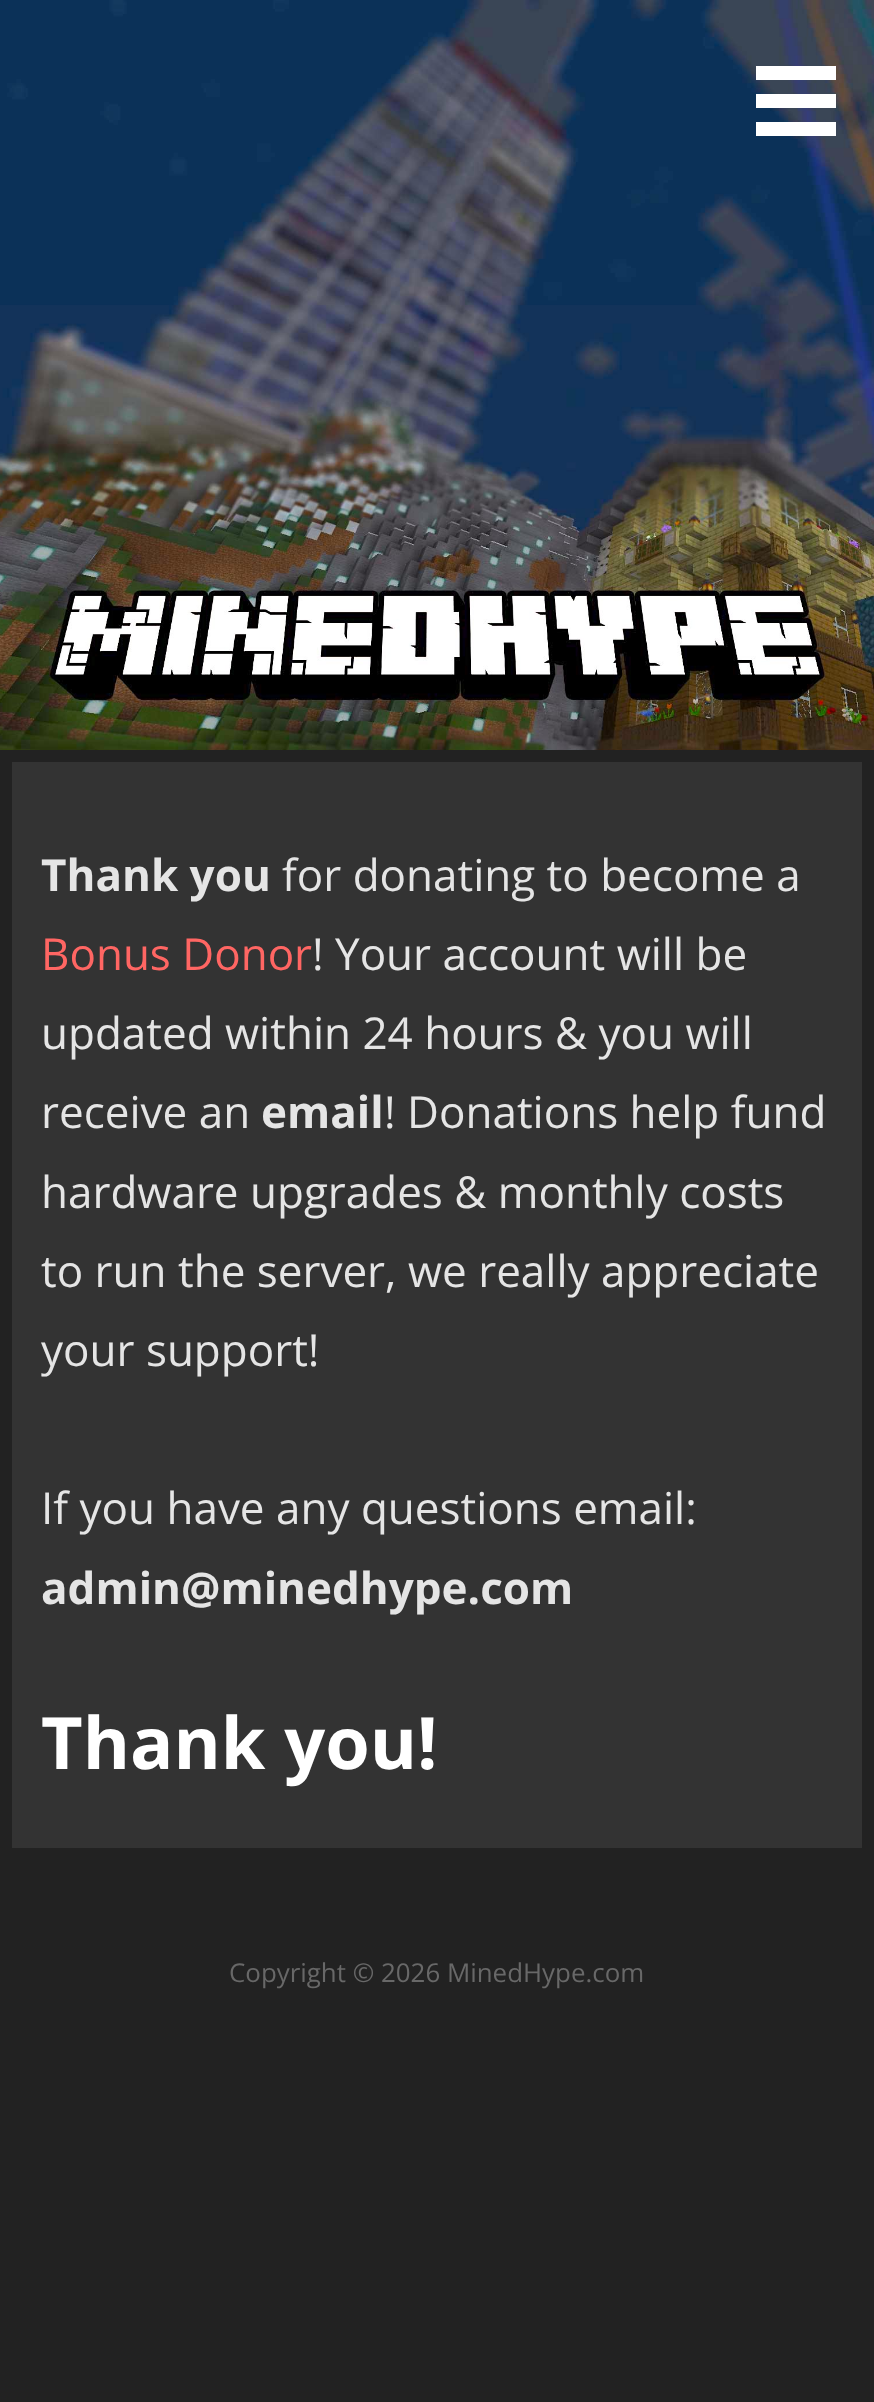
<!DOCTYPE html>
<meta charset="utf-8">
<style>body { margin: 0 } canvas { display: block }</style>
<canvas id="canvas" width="874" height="2402"></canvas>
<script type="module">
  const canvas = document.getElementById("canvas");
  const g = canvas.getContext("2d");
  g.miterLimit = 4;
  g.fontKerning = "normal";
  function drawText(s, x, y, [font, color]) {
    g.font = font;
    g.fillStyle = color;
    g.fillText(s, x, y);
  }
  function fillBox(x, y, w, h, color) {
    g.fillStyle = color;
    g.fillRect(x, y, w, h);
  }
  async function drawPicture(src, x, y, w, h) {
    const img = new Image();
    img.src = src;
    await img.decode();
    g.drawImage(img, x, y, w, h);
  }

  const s1 = ["bold 44px Open Sans", "#E5E5E5"];
  const s2 = ["44px Open Sans", "#E5E5E5"];
  const s3 = ["44px Open Sans", "#FF6663"];
  const s4 = ["bold 72px Open Sans", "#FFFFFF"];
  const s5 = ["25.9px Open Sans", "#686868"];

  fillBox(0, 0, 874, 2402, "#222222");
  await drawPicture("pic1.png", 0, 0, 874, 750);
  fillBox(756, 66, 80, 14, "#FFFFFF");
  fillBox(756, 94, 80, 14, "#FFFFFF");
  fillBox(756, 122, 80, 14, "#FFFFFF");
  fillBox(12, 762, 850, 1086, "#333333");
  drawText("Thank you", 41, 891, s1);
  drawText("for donating to become a", 282, 891, s2);
  drawText("Bonus Donor", 41, 970, s3);
  drawText("! Your account will be", 312, 970, s2);
  drawText("updated within 24 hours & you will", 41, 1049, s2);
  drawText("receive an", 41, 1128, s2);
  drawText("email", 261, 1128, s1);
  drawText("! Donations help fund", 384, 1128, s2);
  drawText("hardware upgrades & monthly costs", 41, 1208, s2);
  drawText("to run the server, we really appreciate", 41, 1287, s2);
  drawText("your support!", 41, 1366, s2);
  drawText("If you have any questions email:", 41, 1524, s2);
  drawText("admin@minedhype.com", 41, 1604, s1);
  drawText("Thank you!", 41, 1769, s4);
  drawText("Copyright © 2026 MinedHype.com", 229, 1982, s5);
</script>
